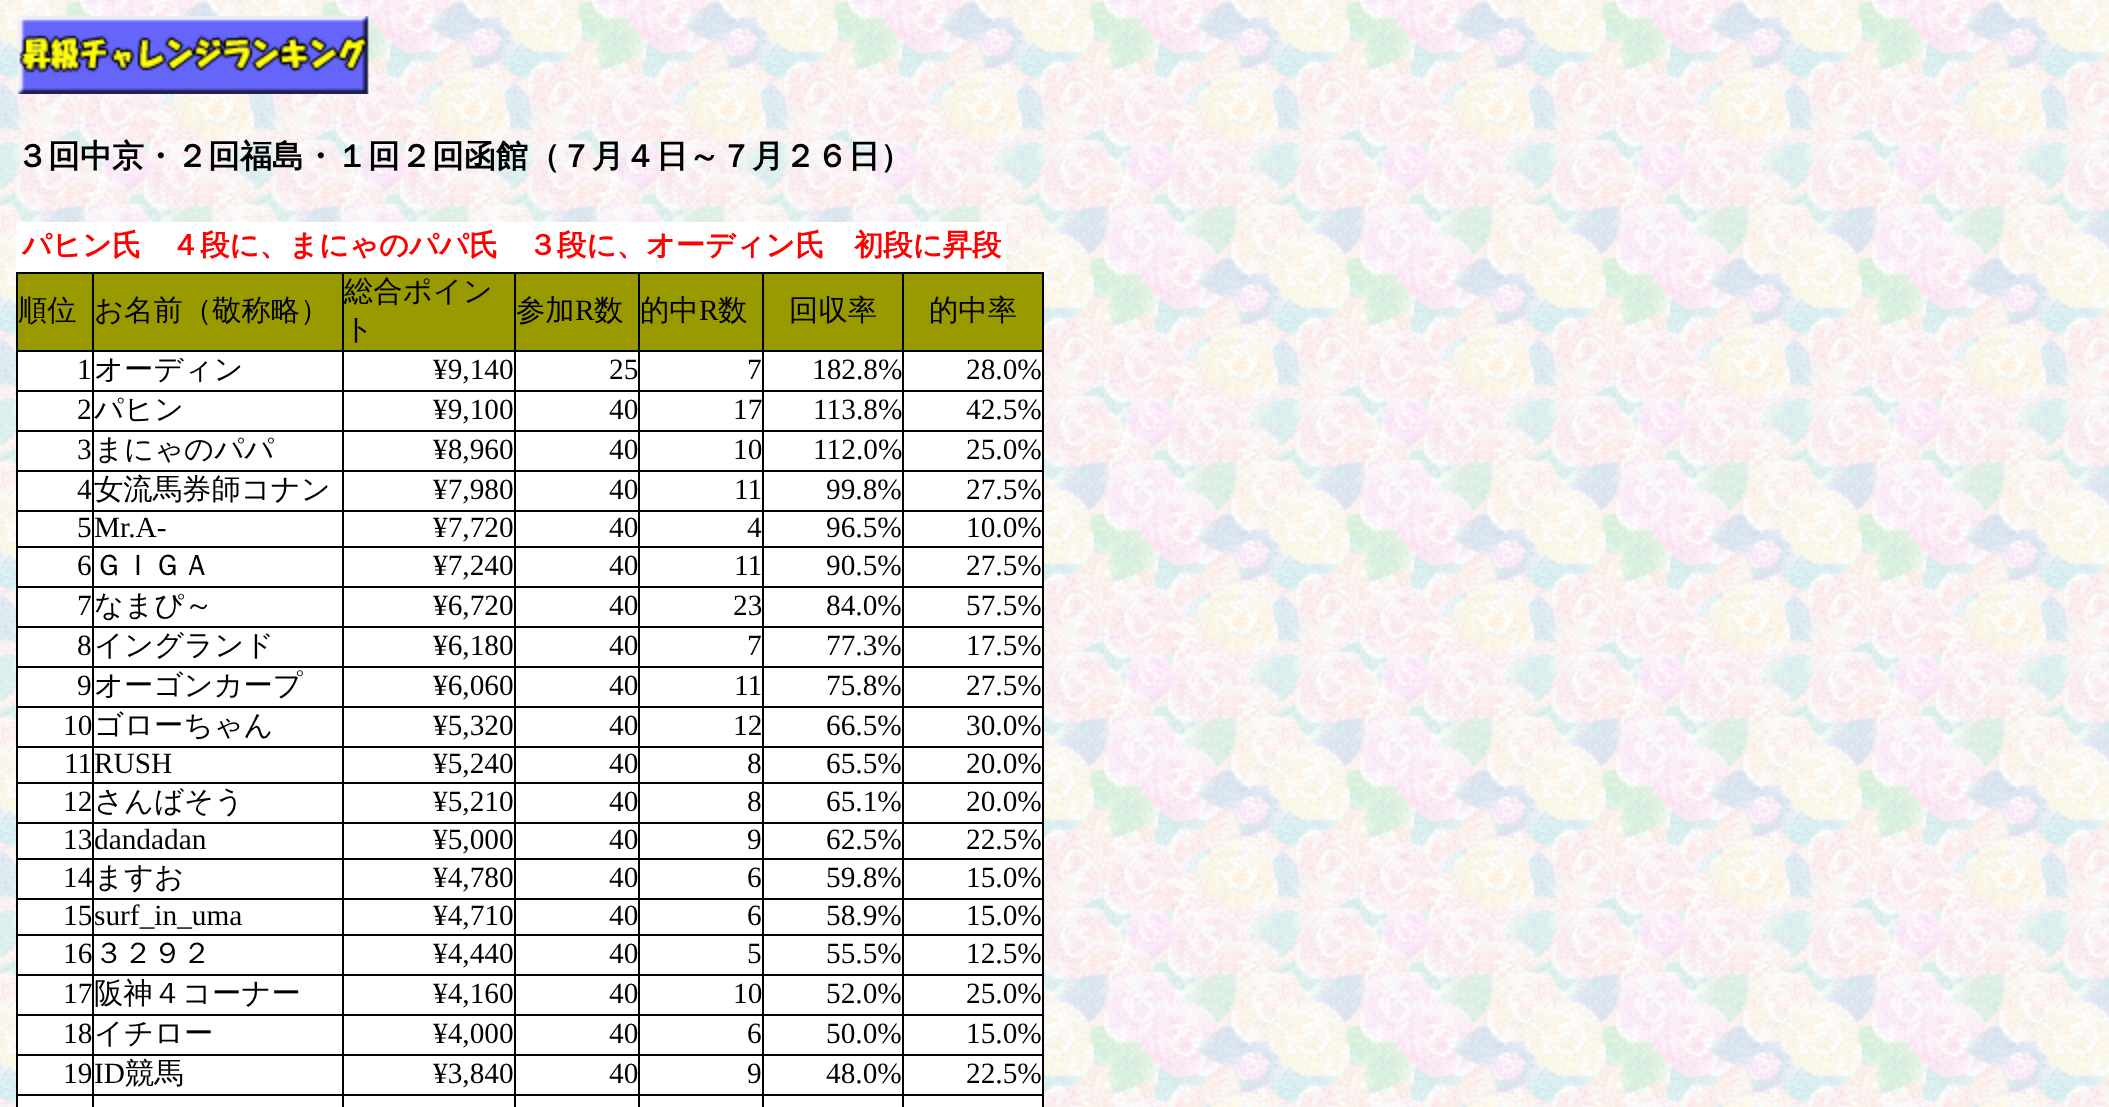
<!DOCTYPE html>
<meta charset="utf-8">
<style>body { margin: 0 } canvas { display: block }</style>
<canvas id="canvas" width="2109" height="1107"></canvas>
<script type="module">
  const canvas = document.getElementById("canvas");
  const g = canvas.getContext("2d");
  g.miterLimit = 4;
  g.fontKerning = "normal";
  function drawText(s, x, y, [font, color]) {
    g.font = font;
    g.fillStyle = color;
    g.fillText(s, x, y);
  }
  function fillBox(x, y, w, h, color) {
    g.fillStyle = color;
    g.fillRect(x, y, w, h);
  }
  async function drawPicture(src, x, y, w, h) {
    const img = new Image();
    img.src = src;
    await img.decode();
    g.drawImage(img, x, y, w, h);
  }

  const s1 = ["bold 32px WenQuanYi Zen Hei", "#000000"];
  const s2 = ["bold 29.35px WenQuanYi Zen Hei", "#FF0000"];
  const s3 = ["500 29.35px WenQuanYi Zen Hei", "#000000"];
  const s4 = ["29.35px Liberation Serif", "#000000"];

  fillBox(0, 0, 2109, 1107, "#FFFFFF");
  await drawPicture("pic1.png", 0, 0, 2109, 1107);
  await drawPicture("pic2.png", 17, 16, 352, 78);
  drawText("３回中京・２回福島・１回２回函館（７月４日～７月２６日）", 16, 167, s1);
  fillBox(16, 222, 990, 50, "#FFFFFF");
  drawText("パヒン氏　４段に、まにゃのパパ氏　３段に、オーディン氏　初段に昇段", 22, 255, s2);
  fillBox(18, 274, 74, 76, "#999900");
  fillBox(902, 272, 142, 2, "#000000");
  fillBox(902, 350, 142, 2, "#000000");
  fillBox(902, 390, 142, 2, "#000000");
  fillBox(902, 430, 142, 2, "#000000");
  fillBox(902, 470, 142, 2, "#000000");
  fillBox(902, 510, 142, 2, "#000000");
  fillBox(902, 546, 142, 2, "#000000");
  fillBox(902, 586, 142, 2, "#000000");
  fillBox(902, 626, 142, 2, "#000000");
  fillBox(902, 666, 142, 2, "#000000");
  fillBox(902, 706, 142, 2, "#000000");
  fillBox(902, 746, 142, 2, "#000000");
  fillBox(902, 782, 142, 2, "#000000");
  fillBox(902, 822, 142, 2, "#000000");
  fillBox(902, 858, 142, 2, "#000000");
  fillBox(902, 898, 142, 2, "#000000");
  fillBox(902, 934, 142, 2, "#000000");
  fillBox(902, 974, 142, 2, "#000000");
  fillBox(902, 1014, 142, 2, "#000000");
  fillBox(902, 1054, 142, 2, "#000000");
  fillBox(902, 1094, 142, 2, "#000000");
  fillBox(902, 1094, 2, 13, "#000000");
  fillBox(762, 1094, 142, 2, "#000000");
  fillBox(902, 1054, 2, 42, "#000000");
  fillBox(762, 1054, 142, 2, "#000000");
  fillBox(902, 1014, 2, 42, "#000000");
  fillBox(762, 1014, 142, 2, "#000000");
  fillBox(902, 974, 2, 42, "#000000");
  fillBox(762, 974, 142, 2, "#000000");
  fillBox(902, 934, 2, 42, "#000000");
  fillBox(762, 934, 142, 2, "#000000");
  fillBox(902, 898, 2, 38, "#000000");
  fillBox(762, 898, 142, 2, "#000000");
  fillBox(902, 858, 2, 42, "#000000");
  fillBox(762, 858, 142, 2, "#000000");
  fillBox(902, 822, 2, 38, "#000000");
  fillBox(762, 822, 142, 2, "#000000");
  fillBox(902, 782, 2, 42, "#000000");
  fillBox(762, 782, 142, 2, "#000000");
  fillBox(902, 746, 2, 38, "#000000");
  fillBox(762, 746, 142, 2, "#000000");
  fillBox(902, 706, 2, 42, "#000000");
  fillBox(762, 706, 142, 2, "#000000");
  fillBox(902, 666, 2, 42, "#000000");
  fillBox(762, 666, 142, 2, "#000000");
  fillBox(902, 626, 2, 42, "#000000");
  fillBox(762, 626, 142, 2, "#000000");
  fillBox(902, 586, 2, 42, "#000000");
  fillBox(762, 586, 142, 2, "#000000");
  fillBox(902, 546, 2, 42, "#000000");
  fillBox(762, 546, 142, 2, "#000000");
  fillBox(902, 510, 2, 38, "#000000");
  fillBox(762, 510, 142, 2, "#000000");
  fillBox(902, 470, 2, 42, "#000000");
  fillBox(762, 470, 142, 2, "#000000");
  fillBox(902, 430, 2, 42, "#000000");
  fillBox(762, 430, 142, 2, "#000000");
  fillBox(902, 390, 2, 42, "#000000");
  fillBox(762, 390, 142, 2, "#000000");
  fillBox(902, 350, 2, 42, "#000000");
  fillBox(762, 350, 142, 2, "#000000");
  fillBox(902, 272, 2, 80, "#000000");
  fillBox(762, 272, 142, 2, "#000000");
  fillBox(762, 1094, 2, 13, "#000000");
  fillBox(638, 1094, 126, 2, "#000000");
  fillBox(762, 1054, 2, 42, "#000000");
  fillBox(638, 1054, 126, 2, "#000000");
  fillBox(762, 1014, 2, 42, "#000000");
  fillBox(638, 1014, 126, 2, "#000000");
  fillBox(762, 974, 2, 42, "#000000");
  fillBox(638, 974, 126, 2, "#000000");
  fillBox(762, 934, 2, 42, "#000000");
  fillBox(638, 934, 126, 2, "#000000");
  fillBox(762, 898, 2, 38, "#000000");
  fillBox(638, 898, 126, 2, "#000000");
  fillBox(762, 858, 2, 42, "#000000");
  fillBox(638, 858, 126, 2, "#000000");
  fillBox(762, 822, 2, 38, "#000000");
  fillBox(638, 822, 126, 2, "#000000");
  fillBox(762, 782, 2, 42, "#000000");
  fillBox(638, 782, 126, 2, "#000000");
  fillBox(762, 746, 2, 38, "#000000");
  fillBox(638, 746, 126, 2, "#000000");
  fillBox(762, 706, 2, 42, "#000000");
  fillBox(638, 706, 126, 2, "#000000");
  fillBox(762, 666, 2, 42, "#000000");
  fillBox(638, 666, 126, 2, "#000000");
  fillBox(762, 626, 2, 42, "#000000");
  fillBox(638, 626, 126, 2, "#000000");
  fillBox(762, 586, 2, 42, "#000000");
  fillBox(638, 586, 126, 2, "#000000");
  fillBox(762, 546, 2, 42, "#000000");
  fillBox(638, 546, 126, 2, "#000000");
  fillBox(762, 510, 2, 38, "#000000");
  fillBox(638, 510, 126, 2, "#000000");
  fillBox(762, 470, 2, 42, "#000000");
  fillBox(638, 470, 126, 2, "#000000");
  fillBox(762, 430, 2, 42, "#000000");
  fillBox(638, 430, 126, 2, "#000000");
  fillBox(762, 390, 2, 42, "#000000");
  fillBox(638, 390, 126, 2, "#000000");
  fillBox(762, 350, 2, 42, "#000000");
  fillBox(638, 350, 126, 2, "#000000");
  fillBox(762, 272, 2, 80, "#000000");
  fillBox(638, 272, 126, 2, "#000000");
  fillBox(638, 1094, 2, 13, "#000000");
  fillBox(514, 1094, 126, 2, "#000000");
  fillBox(638, 1054, 2, 42, "#000000");
  fillBox(514, 1054, 126, 2, "#000000");
  fillBox(638, 1014, 2, 42, "#000000");
  fillBox(514, 1014, 126, 2, "#000000");
  fillBox(638, 974, 2, 42, "#000000");
  fillBox(514, 974, 126, 2, "#000000");
  fillBox(638, 934, 2, 42, "#000000");
  fillBox(514, 934, 126, 2, "#000000");
  fillBox(638, 898, 2, 38, "#000000");
  fillBox(514, 898, 126, 2, "#000000");
  fillBox(638, 858, 2, 42, "#000000");
  fillBox(514, 858, 126, 2, "#000000");
  fillBox(638, 822, 2, 38, "#000000");
  fillBox(514, 822, 126, 2, "#000000");
  fillBox(638, 782, 2, 42, "#000000");
  fillBox(514, 782, 126, 2, "#000000");
  fillBox(638, 746, 2, 38, "#000000");
  fillBox(514, 746, 126, 2, "#000000");
  fillBox(638, 706, 2, 42, "#000000");
  fillBox(514, 706, 126, 2, "#000000");
  fillBox(638, 666, 2, 42, "#000000");
  fillBox(514, 666, 126, 2, "#000000");
  fillBox(638, 626, 2, 42, "#000000");
  fillBox(514, 626, 126, 2, "#000000");
  fillBox(638, 586, 2, 42, "#000000");
  fillBox(514, 586, 126, 2, "#000000");
  fillBox(638, 546, 2, 42, "#000000");
  fillBox(514, 546, 126, 2, "#000000");
  fillBox(638, 510, 2, 38, "#000000");
  fillBox(514, 510, 126, 2, "#000000");
  fillBox(638, 470, 2, 42, "#000000");
  fillBox(514, 470, 126, 2, "#000000");
  fillBox(638, 430, 2, 42, "#000000");
  fillBox(514, 430, 126, 2, "#000000");
  fillBox(638, 390, 2, 42, "#000000");
  fillBox(514, 390, 126, 2, "#000000");
  fillBox(638, 350, 2, 42, "#000000");
  fillBox(514, 350, 126, 2, "#000000");
  fillBox(638, 272, 2, 80, "#000000");
  fillBox(514, 272, 126, 2, "#000000");
  fillBox(514, 1094, 2, 13, "#000000");
  fillBox(342, 1094, 174, 2, "#000000");
  fillBox(514, 1054, 2, 42, "#000000");
  fillBox(342, 1054, 174, 2, "#000000");
  fillBox(514, 1014, 2, 42, "#000000");
  fillBox(342, 1014, 174, 2, "#000000");
  fillBox(514, 974, 2, 42, "#000000");
  fillBox(342, 974, 174, 2, "#000000");
  fillBox(514, 934, 2, 42, "#000000");
  fillBox(342, 934, 174, 2, "#000000");
  fillBox(514, 898, 2, 38, "#000000");
  fillBox(342, 898, 174, 2, "#000000");
  fillBox(514, 858, 2, 42, "#000000");
  fillBox(342, 858, 174, 2, "#000000");
  fillBox(514, 822, 2, 38, "#000000");
  fillBox(342, 822, 174, 2, "#000000");
  fillBox(514, 782, 2, 42, "#000000");
  fillBox(342, 782, 174, 2, "#000000");
  fillBox(514, 746, 2, 38, "#000000");
  fillBox(342, 746, 174, 2, "#000000");
  fillBox(514, 706, 2, 42, "#000000");
  fillBox(342, 706, 174, 2, "#000000");
  fillBox(514, 666, 2, 42, "#000000");
  fillBox(342, 666, 174, 2, "#000000");
  fillBox(514, 626, 2, 42, "#000000");
  fillBox(342, 626, 174, 2, "#000000");
  fillBox(514, 586, 2, 42, "#000000");
  fillBox(342, 586, 174, 2, "#000000");
  fillBox(514, 546, 2, 42, "#000000");
  fillBox(342, 546, 174, 2, "#000000");
  fillBox(514, 510, 2, 38, "#000000");
  fillBox(342, 510, 174, 2, "#000000");
  fillBox(514, 470, 2, 42, "#000000");
  fillBox(342, 470, 174, 2, "#000000");
  fillBox(514, 430, 2, 42, "#000000");
  fillBox(342, 430, 174, 2, "#000000");
  fillBox(514, 390, 2, 42, "#000000");
  fillBox(342, 390, 174, 2, "#000000");
  fillBox(514, 350, 2, 42, "#000000");
  fillBox(342, 350, 174, 2, "#000000");
  fillBox(514, 272, 2, 80, "#000000");
  fillBox(342, 272, 174, 2, "#000000");
  fillBox(342, 1094, 2, 13, "#000000");
  fillBox(92, 1094, 252, 2, "#000000");
  fillBox(342, 1054, 2, 42, "#000000");
  fillBox(92, 1054, 252, 2, "#000000");
  fillBox(342, 1014, 2, 42, "#000000");
  fillBox(92, 1014, 252, 2, "#000000");
  fillBox(342, 974, 2, 42, "#000000");
  fillBox(92, 974, 252, 2, "#000000");
  fillBox(342, 934, 2, 42, "#000000");
  fillBox(92, 934, 252, 2, "#000000");
  fillBox(342, 898, 2, 38, "#000000");
  fillBox(92, 898, 252, 2, "#000000");
  fillBox(342, 858, 2, 42, "#000000");
  fillBox(92, 858, 252, 2, "#000000");
  fillBox(342, 822, 2, 38, "#000000");
  fillBox(92, 822, 252, 2, "#000000");
  fillBox(342, 782, 2, 42, "#000000");
  fillBox(92, 782, 252, 2, "#000000");
  fillBox(342, 746, 2, 38, "#000000");
  fillBox(92, 746, 252, 2, "#000000");
  fillBox(342, 706, 2, 42, "#000000");
  fillBox(92, 706, 252, 2, "#000000");
  fillBox(342, 666, 2, 42, "#000000");
  fillBox(92, 666, 252, 2, "#000000");
  fillBox(342, 626, 2, 42, "#000000");
  fillBox(92, 626, 252, 2, "#000000");
  fillBox(342, 586, 2, 42, "#000000");
  fillBox(92, 586, 252, 2, "#000000");
  fillBox(342, 546, 2, 42, "#000000");
  fillBox(92, 546, 252, 2, "#000000");
  fillBox(342, 510, 2, 38, "#000000");
  fillBox(92, 510, 252, 2, "#000000");
  fillBox(342, 470, 2, 42, "#000000");
  fillBox(92, 470, 252, 2, "#000000");
  fillBox(342, 430, 2, 42, "#000000");
  fillBox(92, 430, 252, 2, "#000000");
  fillBox(342, 390, 2, 42, "#000000");
  fillBox(92, 390, 252, 2, "#000000");
  fillBox(342, 350, 2, 42, "#000000");
  fillBox(92, 350, 252, 2, "#000000");
  fillBox(342, 272, 2, 80, "#000000");
  fillBox(92, 272, 252, 2, "#000000");
  fillBox(92, 1094, 2, 13, "#000000");
  fillBox(16, 1094, 78, 2, "#000000");
  fillBox(92, 1054, 2, 42, "#000000");
  fillBox(16, 1054, 78, 2, "#000000");
  fillBox(92, 1014, 2, 42, "#000000");
  fillBox(16, 1014, 78, 2, "#000000");
  fillBox(92, 974, 2, 42, "#000000");
  fillBox(16, 974, 78, 2, "#000000");
  fillBox(92, 934, 2, 42, "#000000");
  fillBox(16, 934, 78, 2, "#000000");
  fillBox(92, 898, 2, 38, "#000000");
  fillBox(16, 898, 78, 2, "#000000");
  fillBox(92, 858, 2, 42, "#000000");
  fillBox(16, 858, 78, 2, "#000000");
  fillBox(92, 822, 2, 38, "#000000");
  fillBox(16, 822, 78, 2, "#000000");
  fillBox(92, 782, 2, 42, "#000000");
  fillBox(16, 782, 78, 2, "#000000");
  fillBox(92, 746, 2, 38, "#000000");
  fillBox(16, 746, 78, 2, "#000000");
  fillBox(92, 706, 2, 42, "#000000");
  fillBox(16, 706, 78, 2, "#000000");
  fillBox(92, 666, 2, 42, "#000000");
  fillBox(16, 666, 78, 2, "#000000");
  fillBox(92, 626, 2, 42, "#000000");
  fillBox(16, 626, 78, 2, "#000000");
  fillBox(92, 586, 2, 42, "#000000");
  fillBox(16, 586, 78, 2, "#000000");
  fillBox(92, 546, 2, 42, "#000000");
  fillBox(16, 546, 78, 2, "#000000");
  fillBox(92, 510, 2, 38, "#000000");
  fillBox(16, 510, 78, 2, "#000000");
  fillBox(92, 470, 2, 42, "#000000");
  fillBox(16, 470, 78, 2, "#000000");
  fillBox(92, 430, 2, 42, "#000000");
  fillBox(16, 430, 78, 2, "#000000");
  fillBox(92, 390, 2, 42, "#000000");
  fillBox(16, 390, 78, 2, "#000000");
  fillBox(92, 350, 2, 42, "#000000");
  fillBox(16, 350, 78, 2, "#000000");
  fillBox(92, 272, 2, 80, "#000000");
  fillBox(16, 272, 78, 2, "#000000");
  fillBox(16, 1094, 2, 13, "#000000");
  fillBox(16, 1054, 2, 42, "#000000");
  fillBox(16, 1014, 2, 42, "#000000");
  fillBox(16, 974, 2, 42, "#000000");
  fillBox(16, 934, 2, 42, "#000000");
  fillBox(16, 898, 2, 38, "#000000");
  fillBox(16, 858, 2, 42, "#000000");
  fillBox(16, 822, 2, 38, "#000000");
  fillBox(16, 782, 2, 42, "#000000");
  fillBox(16, 746, 2, 38, "#000000");
  fillBox(16, 706, 2, 42, "#000000");
  fillBox(16, 666, 2, 42, "#000000");
  fillBox(16, 626, 2, 42, "#000000");
  fillBox(16, 586, 2, 42, "#000000");
  fillBox(16, 546, 2, 42, "#000000");
  fillBox(16, 510, 2, 38, "#000000");
  fillBox(16, 470, 2, 42, "#000000");
  fillBox(16, 430, 2, 42, "#000000");
  fillBox(16, 390, 2, 42, "#000000");
  fillBox(16, 350, 2, 42, "#000000");
  fillBox(16, 272, 2, 80, "#000000");
  drawText("順位", 18, 320, s3);
  fillBox(94, 274, 248, 76, "#999900");
  drawText("お名前（敬称略）", 94, 320, s3);
  fillBox(344, 274, 170, 76, "#999900");
  drawText("総合ポイン", 344, 301, s3);
  drawText("ト", 344, 339, s3);
  fillBox(516, 274, 122, 76, "#999900");
  drawText("参加", 516, 320, s3);
  drawText("R", 575, 320, s4);
  drawText("数", 594, 320, s3);
  fillBox(640, 274, 122, 76, "#999900");
  drawText("的中", 640, 320, s3);
  drawText("R", 699, 320, s4);
  drawText("数", 718, 320, s3);
  fillBox(764, 274, 138, 76, "#999900");
  drawText("回収率", 789, 320, s3);
  fillBox(904, 274, 138, 76, "#999900");
  fillBox(1042, 1094, 2, 13, "#000000");
  fillBox(1042, 1054, 2, 42, "#000000");
  fillBox(1042, 1014, 2, 42, "#000000");
  fillBox(1042, 974, 2, 42, "#000000");
  fillBox(1042, 934, 2, 42, "#000000");
  fillBox(1042, 898, 2, 38, "#000000");
  fillBox(1042, 858, 2, 42, "#000000");
  fillBox(1042, 822, 2, 38, "#000000");
  fillBox(1042, 782, 2, 42, "#000000");
  fillBox(1042, 746, 2, 38, "#000000");
  fillBox(1042, 706, 2, 42, "#000000");
  fillBox(1042, 666, 2, 42, "#000000");
  fillBox(1042, 626, 2, 42, "#000000");
  fillBox(1042, 586, 2, 42, "#000000");
  fillBox(1042, 546, 2, 42, "#000000");
  fillBox(1042, 510, 2, 38, "#000000");
  fillBox(1042, 470, 2, 42, "#000000");
  fillBox(1042, 430, 2, 42, "#000000");
  fillBox(1042, 390, 2, 42, "#000000");
  fillBox(1042, 350, 2, 42, "#000000");
  fillBox(1042, 272, 2, 80, "#000000");
  drawText("的中率", 929, 320, s3);
  fillBox(18, 352, 74, 38, "#FFFFFF");
  drawText("1", 77, 379, s4);
  fillBox(94, 352, 248, 38, "#FFFFFF");
  drawText("オーディン", 94, 379, s3);
  fillBox(344, 352, 170, 38, "#FFFFFF");
  drawText("¥9,140", 433, 379, s4);
  fillBox(516, 352, 122, 38, "#FFFFFF");
  drawText("25", 609, 379, s4);
  fillBox(640, 352, 122, 38, "#FFFFFF");
  drawText("7", 747, 379, s4);
  fillBox(764, 352, 138, 38, "#FFFFFF");
  drawText("182.8%", 812, 379, s4);
  fillBox(904, 352, 138, 38, "#FFFFFF");
  drawText("28.0%", 966, 379, s4);
  fillBox(18, 392, 74, 38, "#FFFFFF");
  drawText("2", 77, 419, s4);
  fillBox(94, 392, 248, 38, "#FFFFFF");
  drawText("パヒン", 94, 419, s3);
  fillBox(344, 392, 170, 38, "#FFFFFF");
  drawText("¥9,100", 433, 419, s4);
  fillBox(516, 392, 122, 38, "#FFFFFF");
  drawText("40", 609, 419, s4);
  fillBox(640, 392, 122, 38, "#FFFFFF");
  drawText("17", 733, 419, s4);
  fillBox(764, 392, 138, 38, "#FFFFFF");
  drawText("113.8%", 813, 419, s4);
  fillBox(904, 392, 138, 38, "#FFFFFF");
  drawText("42.5%", 966, 419, s4);
  fillBox(18, 432, 74, 38, "#FFFFFF");
  drawText("3", 77, 459, s4);
  fillBox(94, 432, 248, 38, "#FFFFFF");
  drawText("まにゃのパパ", 94, 459, s3);
  fillBox(344, 432, 170, 38, "#FFFFFF");
  drawText("¥8,960", 433, 459, s4);
  fillBox(516, 432, 122, 38, "#FFFFFF");
  drawText("40", 609, 459, s4);
  fillBox(640, 432, 122, 38, "#FFFFFF");
  drawText("10", 733, 459, s4);
  fillBox(764, 432, 138, 38, "#FFFFFF");
  drawText("112.0%", 813, 459, s4);
  fillBox(904, 432, 138, 38, "#FFFFFF");
  drawText("25.0%", 966, 459, s4);
  fillBox(18, 472, 74, 38, "#FFFFFF");
  drawText("4", 77, 499, s4);
  fillBox(94, 472, 248, 38, "#FFFFFF");
  drawText("女流馬券師コナン", 94, 499, s3);
  fillBox(344, 472, 170, 38, "#FFFFFF");
  drawText("¥7,980", 433, 499, s4);
  fillBox(516, 472, 122, 38, "#FFFFFF");
  drawText("40", 609, 499, s4);
  fillBox(640, 472, 122, 38, "#FFFFFF");
  drawText("11", 734, 499, s4);
  fillBox(764, 472, 138, 38, "#FFFFFF");
  drawText("99.8%", 826, 499, s4);
  fillBox(904, 472, 138, 38, "#FFFFFF");
  drawText("27.5%", 966, 499, s4);
  fillBox(18, 512, 74, 34, "#FFFFFF");
  drawText("5", 77, 537, s4);
  fillBox(94, 512, 248, 34, "#FFFFFF");
  drawText("Mr.A-", 94, 537, s4);
  fillBox(344, 512, 170, 34, "#FFFFFF");
  drawText("¥7,720", 433, 537, s4);
  fillBox(516, 512, 122, 34, "#FFFFFF");
  drawText("40", 609, 537, s4);
  fillBox(640, 512, 122, 34, "#FFFFFF");
  drawText("4", 747, 537, s4);
  fillBox(764, 512, 138, 34, "#FFFFFF");
  drawText("96.5%", 826, 537, s4);
  fillBox(904, 512, 138, 34, "#FFFFFF");
  drawText("10.0%", 966, 537, s4);
  fillBox(18, 548, 74, 38, "#FFFFFF");
  drawText("6", 77, 575, s4);
  fillBox(94, 548, 248, 38, "#FFFFFF");
  drawText("ＧＩＧＡ", 94, 575, s3);
  fillBox(344, 548, 170, 38, "#FFFFFF");
  drawText("¥7,240", 433, 575, s4);
  fillBox(516, 548, 122, 38, "#FFFFFF");
  drawText("40", 609, 575, s4);
  fillBox(640, 548, 122, 38, "#FFFFFF");
  drawText("11", 734, 575, s4);
  fillBox(764, 548, 138, 38, "#FFFFFF");
  drawText("90.5%", 826, 575, s4);
  fillBox(904, 548, 138, 38, "#FFFFFF");
  drawText("27.5%", 966, 575, s4);
  fillBox(18, 588, 74, 38, "#FFFFFF");
  drawText("7", 77, 615, s4);
  fillBox(94, 588, 248, 38, "#FFFFFF");
  drawText("なまぴ～", 94, 615, s3);
  fillBox(344, 588, 170, 38, "#FFFFFF");
  drawText("¥6,720", 433, 615, s4);
  fillBox(516, 588, 122, 38, "#FFFFFF");
  drawText("40", 609, 615, s4);
  fillBox(640, 588, 122, 38, "#FFFFFF");
  drawText("23", 733, 615, s4);
  fillBox(764, 588, 138, 38, "#FFFFFF");
  drawText("84.0%", 826, 615, s4);
  fillBox(904, 588, 138, 38, "#FFFFFF");
  drawText("57.5%", 966, 615, s4);
  fillBox(18, 628, 74, 38, "#FFFFFF");
  drawText("8", 77, 655, s4);
  fillBox(94, 628, 248, 38, "#FFFFFF");
  drawText("イングランド", 94, 655, s3);
  fillBox(344, 628, 170, 38, "#FFFFFF");
  drawText("¥6,180", 433, 655, s4);
  fillBox(516, 628, 122, 38, "#FFFFFF");
  drawText("40", 609, 655, s4);
  fillBox(640, 628, 122, 38, "#FFFFFF");
  drawText("7", 747, 655, s4);
  fillBox(764, 628, 138, 38, "#FFFFFF");
  drawText("77.3%", 826, 655, s4);
  fillBox(904, 628, 138, 38, "#FFFFFF");
  drawText("17.5%", 966, 655, s4);
  fillBox(18, 668, 74, 38, "#FFFFFF");
  drawText("9", 77, 695, s4);
  fillBox(94, 668, 248, 38, "#FFFFFF");
  drawText("オーゴンカープ", 94, 695, s3);
  fillBox(344, 668, 170, 38, "#FFFFFF");
  drawText("¥6,060", 433, 695, s4);
  fillBox(516, 668, 122, 38, "#FFFFFF");
  drawText("40", 609, 695, s4);
  fillBox(640, 668, 122, 38, "#FFFFFF");
  drawText("11", 734, 695, s4);
  fillBox(764, 668, 138, 38, "#FFFFFF");
  drawText("75.8%", 826, 695, s4);
  fillBox(904, 668, 138, 38, "#FFFFFF");
  drawText("27.5%", 966, 695, s4);
  fillBox(18, 708, 74, 38, "#FFFFFF");
  drawText("10", 63, 735, s4);
  fillBox(94, 708, 248, 38, "#FFFFFF");
  drawText("ゴローちゃん", 94, 735, s3);
  fillBox(344, 708, 170, 38, "#FFFFFF");
  drawText("¥5,320", 433, 735, s4);
  fillBox(516, 708, 122, 38, "#FFFFFF");
  drawText("40", 609, 735, s4);
  fillBox(640, 708, 122, 38, "#FFFFFF");
  drawText("12", 733, 735, s4);
  fillBox(764, 708, 138, 38, "#FFFFFF");
  drawText("66.5%", 826, 735, s4);
  fillBox(904, 708, 138, 38, "#FFFFFF");
  drawText("30.0%", 966, 735, s4);
  fillBox(18, 748, 74, 34, "#FFFFFF");
  drawText("11", 64, 773, s4);
  fillBox(94, 748, 248, 34, "#FFFFFF");
  drawText("RUSH", 94, 773, s4);
  fillBox(344, 748, 170, 34, "#FFFFFF");
  drawText("¥5,240", 433, 773, s4);
  fillBox(516, 748, 122, 34, "#FFFFFF");
  drawText("40", 609, 773, s4);
  fillBox(640, 748, 122, 34, "#FFFFFF");
  drawText("8", 747, 773, s4);
  fillBox(764, 748, 138, 34, "#FFFFFF");
  drawText("65.5%", 826, 773, s4);
  fillBox(904, 748, 138, 34, "#FFFFFF");
  drawText("20.0%", 966, 773, s4);
  fillBox(18, 784, 74, 38, "#FFFFFF");
  drawText("12", 63, 811, s4);
  fillBox(94, 784, 248, 38, "#FFFFFF");
  drawText("さんばそう", 94, 811, s3);
  fillBox(344, 784, 170, 38, "#FFFFFF");
  drawText("¥5,210", 433, 811, s4);
  fillBox(516, 784, 122, 38, "#FFFFFF");
  drawText("40", 609, 811, s4);
  fillBox(640, 784, 122, 38, "#FFFFFF");
  drawText("8", 747, 811, s4);
  fillBox(764, 784, 138, 38, "#FFFFFF");
  drawText("65.1%", 826, 811, s4);
  fillBox(904, 784, 138, 38, "#FFFFFF");
  drawText("20.0%", 966, 811, s4);
  fillBox(18, 824, 74, 34, "#FFFFFF");
  drawText("13", 63, 849, s4);
  fillBox(94, 824, 248, 34, "#FFFFFF");
  drawText("dandadan", 94, 849, s4);
  fillBox(344, 824, 170, 34, "#FFFFFF");
  drawText("¥5,000", 433, 849, s4);
  fillBox(516, 824, 122, 34, "#FFFFFF");
  drawText("40", 609, 849, s4);
  fillBox(640, 824, 122, 34, "#FFFFFF");
  drawText("9", 747, 849, s4);
  fillBox(764, 824, 138, 34, "#FFFFFF");
  drawText("62.5%", 826, 849, s4);
  fillBox(904, 824, 138, 34, "#FFFFFF");
  drawText("22.5%", 966, 849, s4);
  fillBox(18, 860, 74, 38, "#FFFFFF");
  drawText("14", 63, 887, s4);
  fillBox(94, 860, 248, 38, "#FFFFFF");
  drawText("ますお", 94, 887, s3);
  fillBox(344, 860, 170, 38, "#FFFFFF");
  drawText("¥4,780", 433, 887, s4);
  fillBox(516, 860, 122, 38, "#FFFFFF");
  drawText("40", 609, 887, s4);
  fillBox(640, 860, 122, 38, "#FFFFFF");
  drawText("6", 747, 887, s4);
  fillBox(764, 860, 138, 38, "#FFFFFF");
  drawText("59.8%", 826, 887, s4);
  fillBox(904, 860, 138, 38, "#FFFFFF");
  drawText("15.0%", 966, 887, s4);
  fillBox(18, 900, 74, 34, "#FFFFFF");
  drawText("15", 63, 925, s4);
  fillBox(94, 900, 248, 34, "#FFFFFF");
  drawText("surf_in_uma", 94, 925, s4);
  fillBox(344, 900, 170, 34, "#FFFFFF");
  drawText("¥4,710", 433, 925, s4);
  fillBox(516, 900, 122, 34, "#FFFFFF");
  drawText("40", 609, 925, s4);
  fillBox(640, 900, 122, 34, "#FFFFFF");
  drawText("6", 747, 925, s4);
  fillBox(764, 900, 138, 34, "#FFFFFF");
  drawText("58.9%", 826, 925, s4);
  fillBox(904, 900, 138, 34, "#FFFFFF");
  drawText("15.0%", 966, 925, s4);
  fillBox(18, 936, 74, 38, "#FFFFFF");
  drawText("16", 63, 963, s4);
  fillBox(94, 936, 248, 38, "#FFFFFF");
  drawText("３２９２", 94, 963, s3);
  fillBox(344, 936, 170, 38, "#FFFFFF");
  drawText("¥4,440", 433, 963, s4);
  fillBox(516, 936, 122, 38, "#FFFFFF");
  drawText("40", 609, 963, s4);
  fillBox(640, 936, 122, 38, "#FFFFFF");
  drawText("5", 747, 963, s4);
  fillBox(764, 936, 138, 38, "#FFFFFF");
  drawText("55.5%", 826, 963, s4);
  fillBox(904, 936, 138, 38, "#FFFFFF");
  drawText("12.5%", 966, 963, s4);
  fillBox(18, 976, 74, 38, "#FFFFFF");
  drawText("17", 63, 1003, s4);
  fillBox(94, 976, 248, 38, "#FFFFFF");
  drawText("阪神４コーナー", 94, 1003, s3);
  fillBox(344, 976, 170, 38, "#FFFFFF");
  drawText("¥4,160", 433, 1003, s4);
  fillBox(516, 976, 122, 38, "#FFFFFF");
  drawText("40", 609, 1003, s4);
  fillBox(640, 976, 122, 38, "#FFFFFF");
  drawText("10", 733, 1003, s4);
  fillBox(764, 976, 138, 38, "#FFFFFF");
  drawText("52.0%", 826, 1003, s4);
  fillBox(904, 976, 138, 38, "#FFFFFF");
  drawText("25.0%", 966, 1003, s4);
  fillBox(18, 1016, 74, 38, "#FFFFFF");
  drawText("18", 63, 1043, s4);
  fillBox(94, 1016, 248, 38, "#FFFFFF");
  drawText("イチロー", 94, 1043, s3);
  fillBox(344, 1016, 170, 38, "#FFFFFF");
  drawText("¥4,000", 433, 1043, s4);
  fillBox(516, 1016, 122, 38, "#FFFFFF");
  drawText("40", 609, 1043, s4);
  fillBox(640, 1016, 122, 38, "#FFFFFF");
  drawText("6", 747, 1043, s4);
  fillBox(764, 1016, 138, 38, "#FFFFFF");
  drawText("50.0%", 826, 1043, s4);
  fillBox(904, 1016, 138, 38, "#FFFFFF");
  drawText("15.0%", 966, 1043, s4);
  fillBox(18, 1056, 74, 38, "#FFFFFF");
  drawText("19", 63, 1083, s4);
  fillBox(94, 1056, 248, 38, "#FFFFFF");
  drawText("ID", 94, 1083, s4);
  drawText("競馬", 125, 1083, s3);
  fillBox(344, 1056, 170, 38, "#FFFFFF");
  drawText("¥3,840", 433, 1083, s4);
  fillBox(516, 1056, 122, 38, "#FFFFFF");
  drawText("40", 609, 1083, s4);
  fillBox(640, 1056, 122, 38, "#FFFFFF");
  drawText("9", 747, 1083, s4);
  fillBox(764, 1056, 138, 38, "#FFFFFF");
  drawText("48.0%", 826, 1083, s4);
  fillBox(904, 1056, 138, 38, "#FFFFFF");
  drawText("22.5%", 966, 1083, s4);
  fillBox(18, 1096, 74, 11, "#FFFFFF");
  fillBox(94, 1096, 248, 11, "#FFFFFF");
  fillBox(344, 1096, 170, 11, "#FFFFFF");
  fillBox(516, 1096, 122, 11, "#FFFFFF");
  fillBox(640, 1096, 122, 11, "#FFFFFF");
  fillBox(764, 1096, 138, 11, "#FFFFFF");
  fillBox(904, 1096, 138, 11, "#FFFFFF");
</script>
